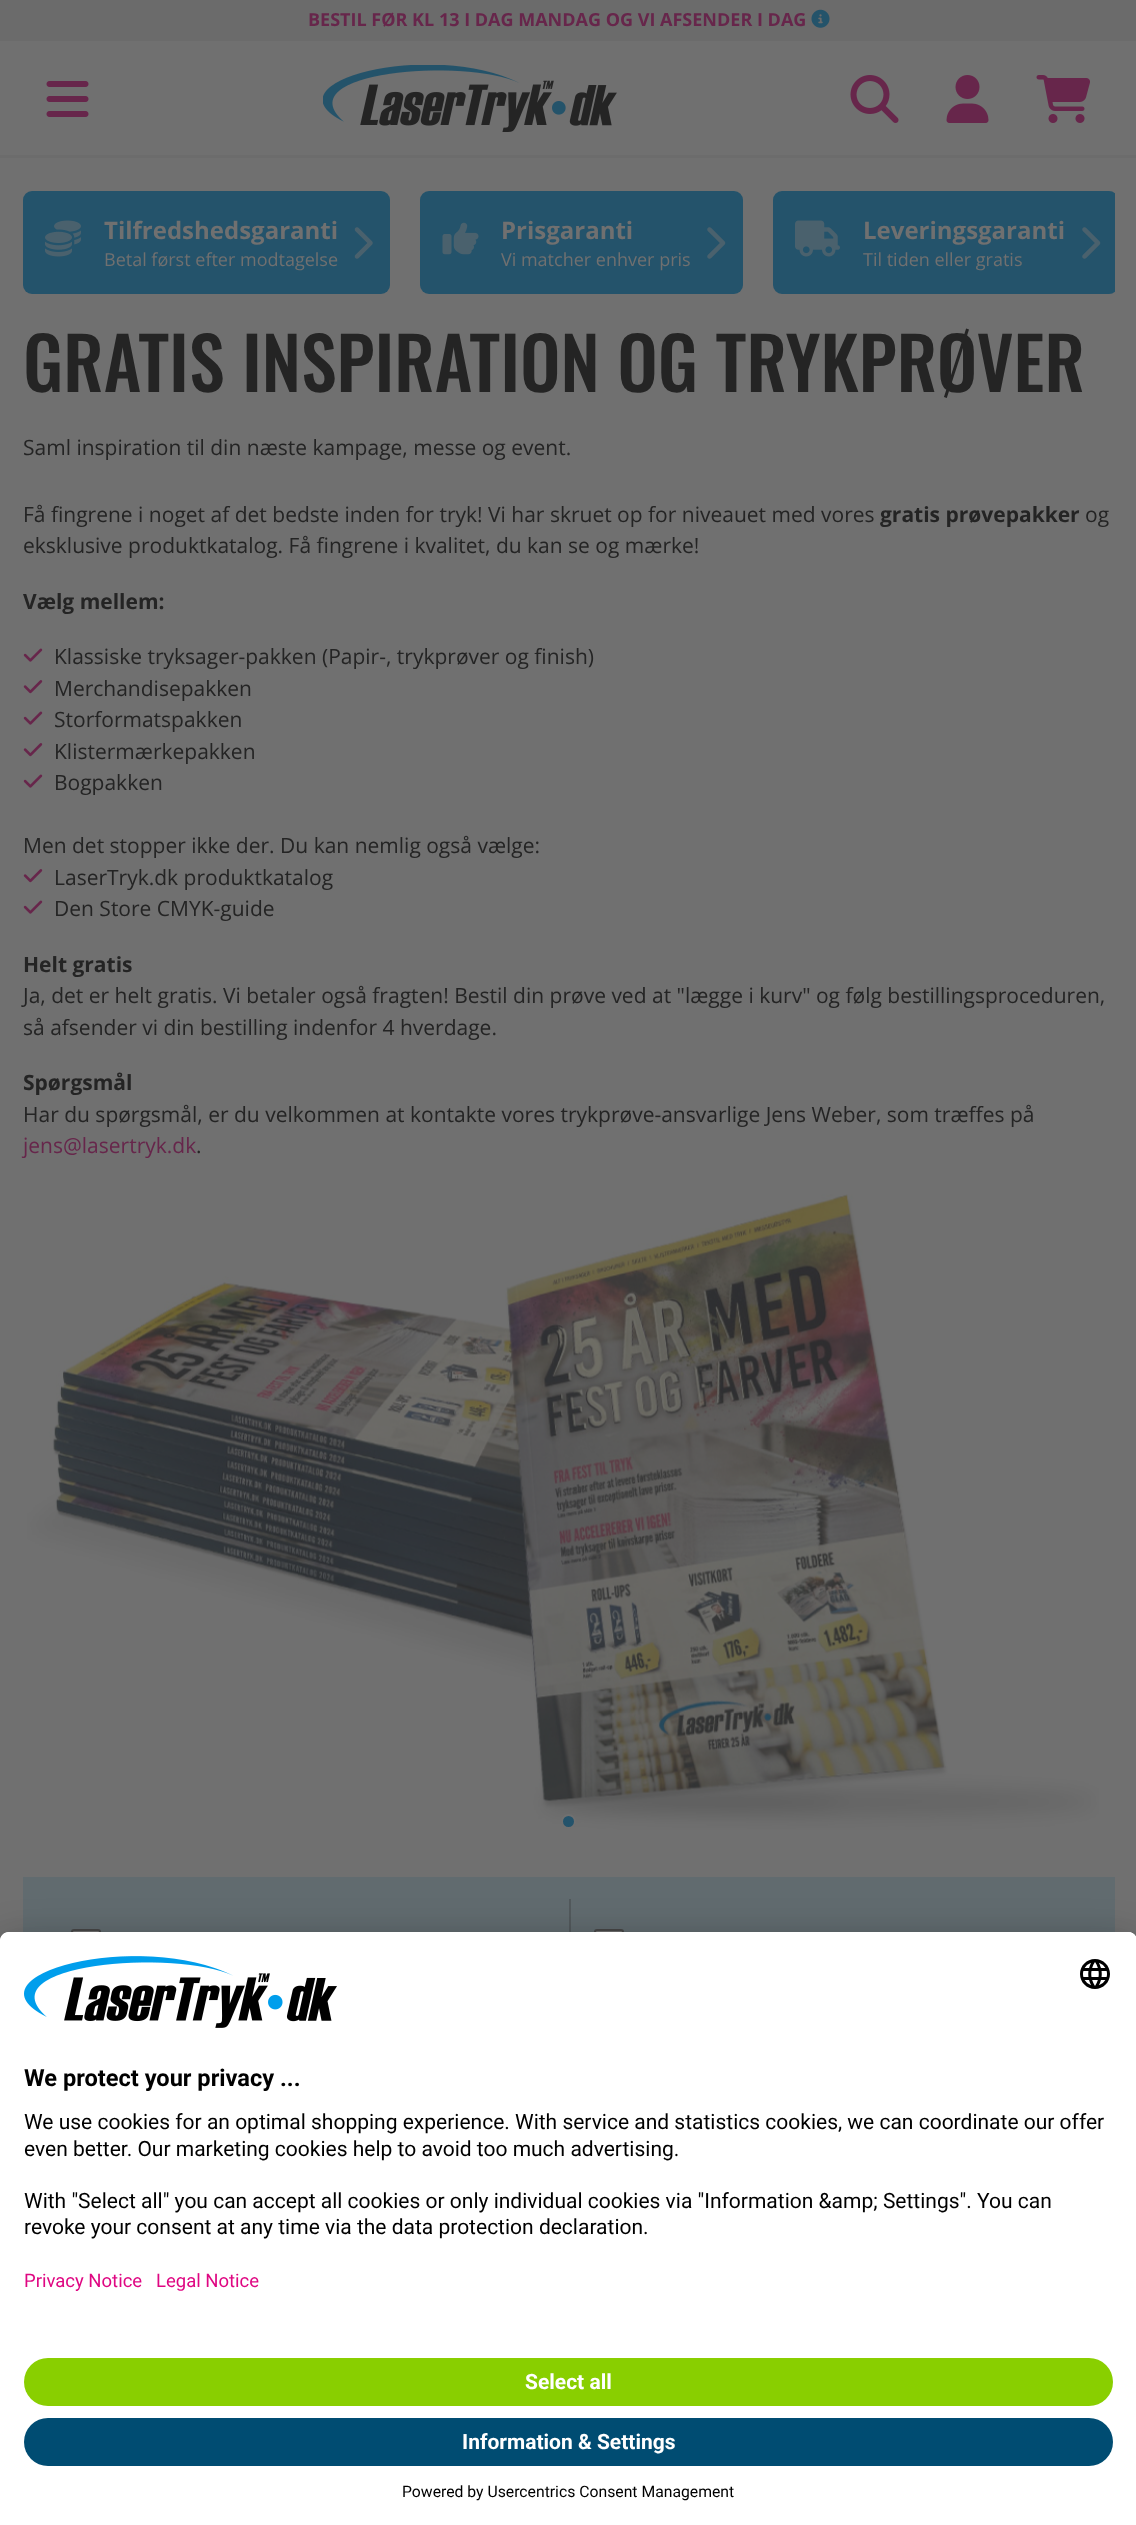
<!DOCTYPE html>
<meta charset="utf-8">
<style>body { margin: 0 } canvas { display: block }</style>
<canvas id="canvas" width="1136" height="2525"></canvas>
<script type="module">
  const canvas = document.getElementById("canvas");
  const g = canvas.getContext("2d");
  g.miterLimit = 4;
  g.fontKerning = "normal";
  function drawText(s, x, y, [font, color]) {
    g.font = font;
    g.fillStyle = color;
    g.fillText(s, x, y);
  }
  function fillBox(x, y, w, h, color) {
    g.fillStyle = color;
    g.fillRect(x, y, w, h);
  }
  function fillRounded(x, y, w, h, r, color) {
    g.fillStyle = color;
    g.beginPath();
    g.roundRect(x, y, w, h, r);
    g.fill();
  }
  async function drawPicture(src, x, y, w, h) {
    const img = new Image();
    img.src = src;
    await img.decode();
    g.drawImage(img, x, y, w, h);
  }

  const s1 = ["bold 18px Open Sans", "#67264B"];
  const s2 = ["bold 24px Open Sans", "#707070"];
  const s3 = ["18px Open Sans", "#707070"];
  const s4 = ["500 72px Oswald", "#242424"];
  const s5 = ["21px Open Sans", "#242424"];
  const s6 = ["bold 21px Open Sans", "#242424"];
  const s7 = ["21px Open Sans", "#67264B"];
  const s8 = ["bold 23.6px Roboto", "#000000"];
  const s9 = ["21px Roboto", "#000000"];
  const s10 = ["18.5px Roboto", "#DF0782"];
  const s11 = ["bold 21px Roboto", "#FFFFFF"];
  const s12 = ["15.75px Roboto", "#000000"];

  fillBox(0, 0, 1136, 2525, "#707070");
  fillBox(0, 155, 1136, 3, "#6C6C6C");
  fillBox(0, 0, 1136, 41, "#6B6B6B");
  drawText("BESTIL FØR KL 13 I DAG MANDAG OG VI AFSENDER I DAG", 308, 26, s1);
  await drawPicture("pic1.png", 811, 9, 19, 19);
  await drawPicture("pic2.png", 46, 81, 43, 36);
  await drawPicture("pic3.png", 323, 65, 294, 67);
  await drawPicture("pic4.png", 850, 75, 49, 48);
  await drawPicture("pic5.png", 946, 75, 43, 48);
  await drawPicture("pic6.png", 1036, 75, 54, 48);
  fillRounded(23, 191, 367, 103, 9, "#24536B");
  await drawPicture("pic7.png", 45, 220, 36, 37);
  drawText("Tilfredshedsgaranti", 104, 239, s2);
  drawText("Betal først efter modtagelse", 104, 266, s3);
  await drawPicture("pic8.png", 354, 227, 19, 32);
  fillRounded(420, 191, 323, 103, 9, "#24536B");
  await drawPicture("pic9.png", 442, 222, 37, 33);
  drawText("Prisgaranti", 501, 239, s2);
  drawText("Vi matcher enhver pris", 501, 266, s3);
  await drawPicture("pic10.png", 707, 227, 19, 32);
  g.save();
  g.beginPath();
  g.rect(23, 191, 1092, 118);
  g.clip();
  fillRounded(773, 191, 345, 103, 9, "#24536B");
  g.restore();
  await drawPicture("pic11.png", 795, 220, 45, 37);
  drawText("Leveringsgaranti", 863, 239, s2);
  drawText("Til tiden eller gratis", 863, 266, s3);
  await drawPicture("pic10.png", 1082, 227, 19, 32);
  drawText("GRATIS INSPIRATION OG TRYKPRØVER", 23, 392, s4);
  drawText("Saml inspiration til din næste kampage, messe og event.", 23, 455, s5);
  drawText("Få fingrene i noget af det bedste inden for tryk! Vi har skruet op for niveauet med vores", 23, 522, s5);
  drawText("gratis prøvepakker", 880, 522, s6);
  drawText("og", 1085, 522, s5);
  drawText("eksklusive produktkatalog. Få fingrene i kvalitet, du kan se og mærke!", 23, 553, s5);
  drawText("Vælg mellem:", 23, 609, s6);
  await drawPicture("pic12.png", 23, 648, 20, 14);
  drawText("Klassiske tryksager-pakken (Papir-, trykprøver og finish)", 54, 664, s5);
  await drawPicture("pic13.png", 23, 680, 20, 14);
  drawText("Merchandisepakken", 54, 696, s5);
  await drawPicture("pic12.png", 23, 711, 20, 14);
  drawText("Storformatspakken", 54, 727, s5);
  await drawPicture("pic13.png", 23, 743, 20, 14);
  drawText("Klistermærkepakken", 54, 759, s5);
  await drawPicture("pic12.png", 23, 774, 20, 14);
  drawText("Bogpakken", 54, 790, s5);
  drawText("Men det stopper ikke der. Du kan nemlig også vælge:", 23, 853, s5);
  await drawPicture("pic13.png", 23, 869, 20, 14);
  drawText("LaserTryk.dk produktkatalog", 54, 885, s5);
  await drawPicture("pic12.png", 23, 900, 20, 14);
  drawText("Den Store CMYK-guide", 54, 916, s5);
  drawText("Helt gratis", 23, 972, s6);
  drawText("Ja, det er helt gratis. Vi betaler også fragten! Bestil din prøve ved at \"lægge i kurv\" og følg bestillingsproceduren,", 23, 1003, s5);
  drawText("så afsender vi din bestilling indenfor 4 hverdage.", 23, 1035, s5);
  drawText("Spørgsmål", 23, 1090, s6);
  drawText("Har du spørgsmål, er du velkommen at kontakte vores trykprøve-ansvarlige Jens Weber, som træffes på", 23, 1122, s5);
  drawText("jens@lasertryk.dk", 23, 1153, s7);
  drawText(".", 196, 1153, s5);
  await drawPicture("pic14.png", 27, 1194, 1072, 636);
  g.fillStyle = "#24536B";
  g.beginPath();
  g.arc(568.5, 1821.5, 6.5, 0, Math.PI * 2);
  g.fill();
  g.strokeStyle = "#707070";
  g.lineWidth = 2;
  g.stroke();
  fillBox(23, 1877, 1092, 55, "#616B6F");
  g.fillStyle = "#707070";
  g.beginPath();
  g.roundRect(72, 1930, 28, 28, 2);
  g.fill();
  g.strokeStyle = "#474747";
  g.stroke();
  fillBox(569, 1899, 2, 33, "#52595C");
  g.fillStyle = "#707070";
  g.beginPath();
  g.roundRect(595, 1930, 28, 28, 2);
  g.fill();
  g.stroke();
  g.fillStyle = "rgba(0, 0, 0, 0.3)";
  g.filter = "blur(21px)";
  g.beginPath();
  g.roundRect(0, 1962, 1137, 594, 9);
  g.fill();
  g.filter = "none";
  g.fillStyle = "rgba(0, 0, 0, 0.22)";
  g.filter = "blur(19.5px)";
  g.beginPath();
  g.roundRect(0, 1940, 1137, 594, 9);
  g.fill();
  g.filter = "none";
  g.fillStyle = "#FFFFFF";
  g.beginPath();
  g.moveTo(9, 1932);
  g.lineTo(1128, 1932);
  g.bezierCurveTo(1133, 1932, 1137, 1936, 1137, 1941);
  g.lineTo(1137, 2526);
  g.lineTo(0, 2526);
  g.lineTo(0, 1941);
  g.bezierCurveTo(0, 1936, 4, 1932, 9, 1932);
  g.closePath();
  g.fill();
  g.beginPath();
  g.moveTo(9, 1932);
  g.lineTo(1128, 1932);
  g.bezierCurveTo(1133, 1932, 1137, 1936, 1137, 1941);
  g.lineTo(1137, 2340);
  g.lineTo(0, 2340);
  g.lineTo(0, 1941);
  g.bezierCurveTo(0, 1936, 4, 1932, 9, 1932);
  g.closePath();
  g.fill();
  await drawPicture("pic15.png", 24, 1956, 313, 72);
  await drawPicture("pic16.png", 1080, 1959, 30, 30);
  drawText("We protect your privacy ...", 24, 2086, s8);
  drawText("We use cookies for an optimal shopping experience. With service and statistics cookies, we can coordinate our offer", 24, 2129, s9);
  drawText("even better. Our marketing cookies help to avoid too much advertising.", 24, 2156, s9);
  drawText("With \"Select all\" you can accept all cookies or only individual cookies via \"Information &amp; Settings\". You can", 24, 2208, s9);
  drawText("revoke your consent at any time via the data protection declaration.", 24, 2234, s9);
  drawText("Privacy Notice", 24, 2287, s10);
  drawText("Legal Notice", 156, 2287, s10);
  fillRounded(24, 2358, 1089, 48, 24, "#89CF00");
  drawText("Select all", 525, 2389, s11);
  fillRounded(24, 2418, 1089, 48, 24, "#004C72");
  drawText("Information & Settings", 462, 2449, s11);
  drawText("Powered by Usercentrics Consent Management", 402, 2497, s12);
</script>
